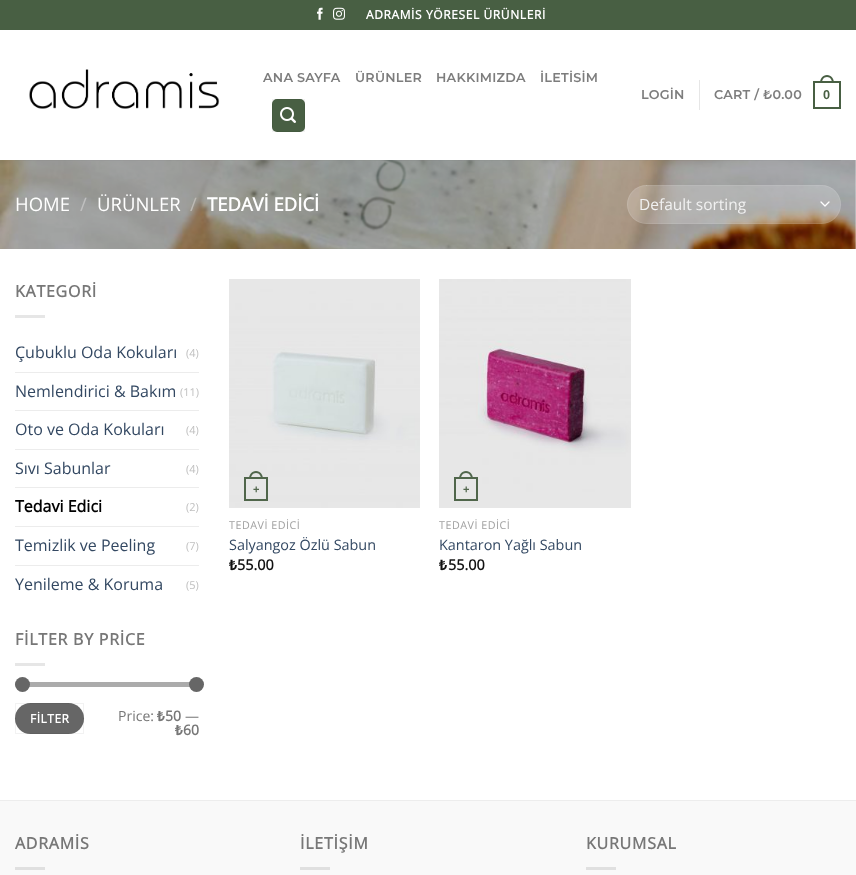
<!DOCTYPE html>
<meta charset="utf-8">
<style>body { margin: 0 } canvas { display: block }</style>
<canvas id="canvas" width="856" height="875"></canvas>
<script type="module">
  const canvas = document.getElementById("canvas");
  const g = canvas.getContext("2d");
  g.miterLimit = 4;
  g.fontKerning = "normal";
  function drawText(s, x, y, [font, color]) {
    g.font = font;
    g.fillStyle = color;
    g.fillText(s, x, y);
  }
  function fillBox(x, y, w, h, color) {
    g.fillStyle = color;
    g.fillRect(x, y, w, h);
  }
  function fillRounded(x, y, w, h, r, color) {
    g.fillStyle = color;
    g.beginPath();
    g.roundRect(x, y, w, h, r);
    g.fill();
  }
  async function drawPicture(src, x, y, w, h) {
    const img = new Image();
    img.src = src;
    await img.decode();
    g.drawImage(img, x, y, w, h);
  }

  const s1 = ["bold 12px Open Sans", "#FFFFFF"];
  const s2 = ["600 12.75px Montserrat", "#7D7D7D"];
  const s3 = ["bold 12.75px Liberation Sans", "#485F43"];
  const s4 = ["18.5px Open Sans", "#FFFFFF"];
  const s5 = ["18.5px Open Sans", "#C0C0C0"];
  const s6 = ["18.5px Open Sans", "#BDBAB5"];
  const s7 = ["bold 18.5px Open Sans", "#FFFFFF"];
  const s8 = ["15.5px Open Sans", "#F1F1F1"];
  const s9 = ["bold 16px Open Sans", "#777777"];
  const s10 = ["16px Open Sans", "#334862"];
  const s11 = ["11px Open Sans", "#C0C0C0"];
  const s12 = ["bold 16px Open Sans", "#000000"];
  const s13 = ["14px Open Sans", "#777777"];
  const s14 = ["bold 14px Noto Sans", "#777777"];
  const s15 = ["bold 14px Open Sans", "#777777"];
  const s16 = ["bold 11px Liberation Sans", "#50664B"];
  const s17 = ["10.75px Open Sans", "#A0A0A0"];
  const s18 = ["14.4px Open Sans", "#334862"];
  const s19 = ["bold 14.4px Noto Sans", "#111111"];
  const s20 = ["bold 14.4px Open Sans", "#111111"];

  fillBox(0, 0, 856, 875, "#FFFFFF");
  fillBox(0, 0, 856, 30, "#485F43");
  await drawPicture("pic1.png", 317, 7, 6, 13);
  await drawPicture("pic2.png", 333, 7, 12, 13);
  g.letterSpacing = "0.6px";
  drawText("ADRAMİS YÖRESEL ÜRÜNLERİ", 366, 19, s1);
  await drawPicture("pic3.png", 29, 69, 191, 40);
  g.letterSpacing = "0.25px";
  drawText("ANA SAYFA", 263, 82, s2);
  drawText("ÜRÜNLER", 355, 82, s2);
  drawText("HAKKIMIZDA", 436, 82, s2);
  drawText("İLETİSİM", 540, 82, s2);
  fillRounded(272, 99, 33, 33, 5, "#485F43");
  g.strokeStyle = "rgba(0, 0, 0, 0.05)";
  g.strokeRect(272.5, 99.5, 32, 32);
  await drawPicture("pic4.png", 280, 107, 16, 16);
  drawText("LOGİN", 641, 99, s2);
  fillBox(699, 80, 1, 30, "#E6E6E6");
  drawText("CART / ₺0.00", 714, 99, s2);
  g.strokeStyle = "#485F43";
  g.lineWidth = 2;
  g.strokeRect(814, 82, 26, 26);
  g.fillStyle = "#485F43";
  g.beginPath();
  g.moveTo(827, 75);
  g.bezierCurveTo(831.5, 75, 834, 79, 834, 83);
  g.lineTo(820, 83);
  g.bezierCurveTo(820, 79, 822.5, 75, 827, 75);
  g.closePath();
  g.moveTo(827, 77);
  g.bezierCurveTo(830.5, 77, 832, 80, 832, 83);
  g.lineTo(822, 83);
  g.bezierCurveTo(822, 80, 823.5, 77, 827, 77);
  g.closePath();
  g.fill("evenodd");
  drawText("0", 823, 99, s3);
  await drawPicture("pic5.png", 0, 160, 856, 89);
  fillBox(15, 160, 826, 1, "rgba(119, 119, 119, 0.1)");
  g.letterSpacing = "0px";
  drawText("HOME", 15, 211, s4);
  drawText("/", 80, 211, s5);
  drawText("ÜRÜNLER", 97, 211, s4);
  drawText("/", 190, 211, s6);
  drawText("TEDAVİ EDİCİ", 207, 211, s7);
  fillRounded(627, 185, 214, 39, 19.5, "rgba(255, 255, 255, 0.2)");
  g.beginPath();
  g.moveTo(821, 202);
  g.lineTo(825, 206);
  g.lineTo(829, 202);
  g.strokeStyle = "#FFFFFF";
  g.lineWidth = 1.3;
  g.lineCap = "round";
  g.lineJoin = "round";
  g.stroke();
  g.beginPath();
  g.roundRect(627.5, 185.5, 213, 38, 19);
  g.strokeStyle = "rgba(255, 255, 255, 0.09)";
  g.lineWidth = 1;
  g.lineJoin = "miter";
  g.stroke();
  drawText("Default sorting", 639, 210, s8);
  g.letterSpacing = "0.75px";
  drawText("KATEGORİ", 15, 297, s9);
  fillBox(15, 315, 30, 3, "#E6E6E6");
  g.letterSpacing = "0px";
  drawText("Çubuklu Oda Kokuları", 15, 358, s10);
  drawText("(4)", 186, 357, s11);
  fillBox(15, 372, 184, 1, "#ECECEC");
  drawText("Nemlendirici & Bakım", 15, 397, s10);
  drawText("(11)", 180, 396, s11);
  fillBox(15, 410, 184, 1, "#ECECEC");
  drawText("Oto ve Oda Kokuları", 15, 435, s10);
  drawText("(4)", 186, 434, s11);
  fillBox(15, 449, 184, 1, "#ECECEC");
  drawText("Sıvı Sabunlar", 15, 474, s10);
  drawText("(4)", 186, 473, s11);
  fillBox(15, 487, 184, 1, "#ECECEC");
  drawText("Tedavi Edici", 15, 512, s12);
  drawText("(2)", 186, 511, s11);
  fillBox(15, 526, 184, 1, "#ECECEC");
  drawText("Temizlik ve Peeling", 15, 551, s10);
  drawText("(7)", 186, 550, s11);
  fillBox(15, 565, 184, 1, "#ECECEC");
  drawText("Yenileme & Koruma", 15, 590, s10);
  drawText("(5)", 186, 589, s11);
  g.letterSpacing = "0.75px";
  drawText("FİLTER BY PRİCE", 15, 645, s9);
  fillBox(15, 663, 30, 3, "#E6E6E6");
  fillRounded(15, 682, 184, 5, 2.5, "#F1F1F1");
  fillRounded(15, 682, 184, 5, 2.5, "rgba(102, 102, 102, 0.5)");
  g.fillStyle = "#666666";
  g.beginPath();
  g.arc(22.5, 684.5, 7.5, 0, Math.PI * 2);
  g.fill();
  g.beginPath();
  g.arc(196.5, 684.5, 7.5, 0, Math.PI * 2);
  g.fill();
  fillRounded(15, 703, 69, 31, 15.5, "#666666");
  g.strokeStyle = "rgba(0, 0, 0, 0.05)";
  g.strokeRect(15.5, 703.5, 68, 30);
  g.letterSpacing = "0.5px";
  drawText("FİLTER", 30, 723, s1);
  g.letterSpacing = "0px";
  drawText("Price:", 118, 721, s13);
  drawText("₺", 157, 721, s14);
  drawText("50", 165, 721, s15);
  drawText("—", 185, 721, s13);
  drawText("₺", 175, 735, s14);
  drawText("60", 183, 735, s15);
  await drawPicture("pic6.png", 229, 279, 191, 229);
  g.strokeStyle = "#50664B";
  g.lineWidth = 2;
  g.strokeRect(245, 478, 22, 22);
  g.fillStyle = "#50664B";
  g.beginPath();
  g.moveTo(256, 471);
  g.bezierCurveTo(260.5, 471, 263, 475, 263, 479);
  g.lineTo(249, 479);
  g.bezierCurveTo(249, 475, 251.5, 471, 256, 471);
  g.closePath();
  g.moveTo(256, 473);
  g.bezierCurveTo(259.5, 473, 261, 476, 261, 479);
  g.lineTo(251, 479);
  g.bezierCurveTo(251, 476, 252.5, 473, 256, 473);
  g.closePath();
  g.fill("evenodd");
  drawText("+", 253, 493, s16);
  g.letterSpacing = "0.5px";
  drawText("TEDAVİ EDİCİ", 229, 529, s17);
  g.letterSpacing = "0px";
  drawText("Salyangoz Özlü Sabun", 229, 550, s18);
  drawText("₺", 229, 570, s19);
  drawText("55.00", 237, 570, s20);
  await drawPicture("pic7.png", 439, 279, 192, 229);
  g.strokeRect(455, 478, 22, 22);
  g.fillStyle = "#50664B";
  g.beginPath();
  g.moveTo(466, 471);
  g.bezierCurveTo(470.5, 471, 473, 475, 473, 479);
  g.lineTo(459, 479);
  g.bezierCurveTo(459, 475, 461.5, 471, 466, 471);
  g.closePath();
  g.moveTo(466, 473);
  g.bezierCurveTo(469.5, 473, 471, 476, 471, 479);
  g.lineTo(461, 479);
  g.bezierCurveTo(461, 476, 462.5, 473, 466, 473);
  g.closePath();
  g.fill("evenodd");
  drawText("+", 463, 493, s16);
  g.letterSpacing = "0.5px";
  drawText("TEDAVİ EDİCİ", 439, 529, s17);
  g.letterSpacing = "0px";
  drawText("Kantaron Yağlı Sabun", 439, 550, s18);
  drawText("₺", 439, 570, s19);
  drawText("55.00", 448, 570, s20);
  fillBox(0, 801, 856, 74, "#F9F9F9");
  fillBox(0, 800, 856, 1, "#EDEDED");
  g.letterSpacing = "0.75px";
  drawText("ADRAMİS", 15, 849, s9);
  fillBox(15, 867, 30, 3, "#E0E0E0");
  drawText("İLETİŞİM", 300, 849, s9);
  fillBox(300, 867, 30, 3, "#E0E0E0");
  drawText("KURUMSAL", 586, 849, s9);
  fillBox(586, 867, 30, 3, "#E0E0E0");
</script>
